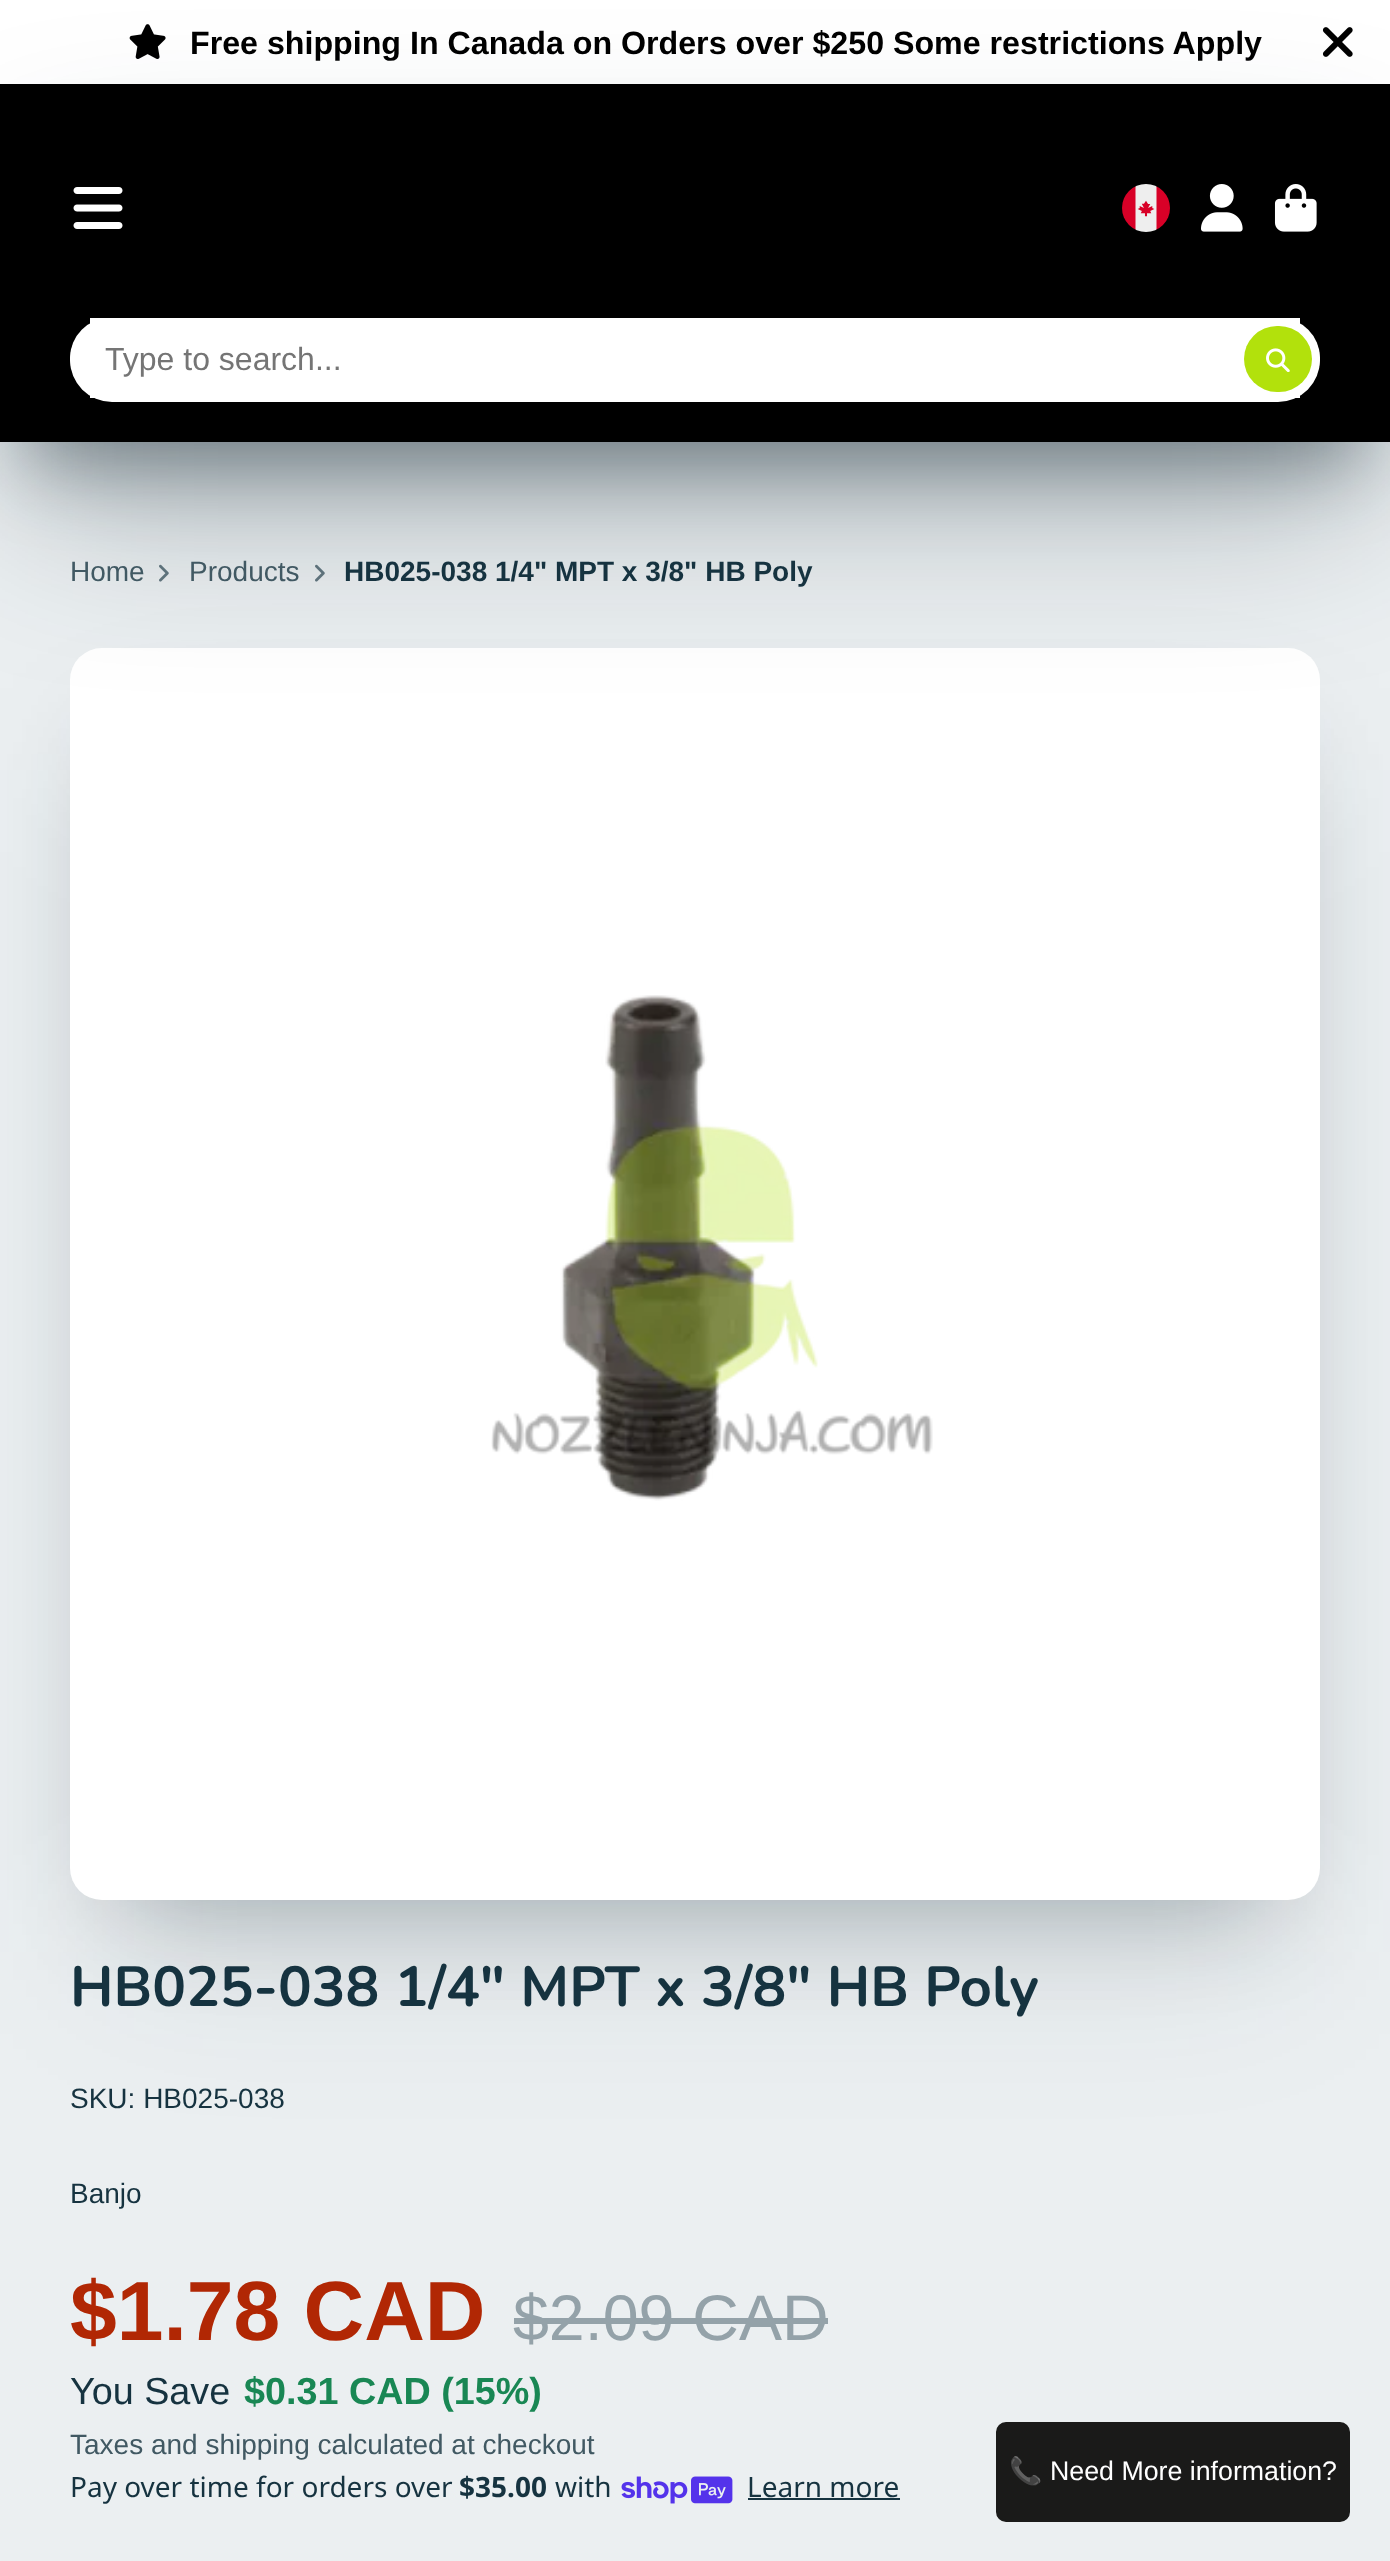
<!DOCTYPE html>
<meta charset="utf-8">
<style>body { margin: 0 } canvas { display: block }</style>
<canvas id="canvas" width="1390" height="2561"></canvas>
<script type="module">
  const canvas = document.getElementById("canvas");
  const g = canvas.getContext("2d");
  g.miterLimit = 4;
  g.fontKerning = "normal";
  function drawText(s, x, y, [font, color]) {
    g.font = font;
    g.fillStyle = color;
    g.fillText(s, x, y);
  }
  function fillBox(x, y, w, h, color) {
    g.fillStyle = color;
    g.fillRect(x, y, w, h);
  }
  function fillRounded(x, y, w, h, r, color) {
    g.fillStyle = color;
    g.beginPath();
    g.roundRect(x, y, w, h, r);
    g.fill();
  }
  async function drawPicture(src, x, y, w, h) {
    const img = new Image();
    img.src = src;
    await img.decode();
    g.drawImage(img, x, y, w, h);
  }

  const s1 = ["bold 32.2px Liberation Sans", "#000000"];
  const s2 = ["32px Liberation Sans", "#757575"];
  const s3 = ["28px Liberation Sans", "#415963"];
  const s4 = ["bold 28px Liberation Sans", "#163340"];
  const s5 = ["bold 56.3px Nunito", "#163340"];
  const s6 = ["28px Liberation Sans", "#163340"];
  const s7 = ["bold 84px Liberation Sans", "#B12704"];
  const s8 = ["64.5px Liberation Sans", "#94A2A9"];
  const s9 = ["37.75px Liberation Sans", "#163340"];
  const s10 = ["bold 37.75px Liberation Sans", "#198754"];
  const s11 = ["28px Noto Sans", "#163340"];
  const s12 = ["bold 28px Noto Sans", "#163340"];
  const s13 = ["26.75px Noto Color Emoji", "#FFFFFF"];
  const s14 = ["26.75px Liberation Sans", "#FFFFFF"];

  fillBox(0, 0, 1390, 2561, "#EBEFF1");
  fillBox(0, 0, 1390, 84, "#FFFFFF");
  await drawPicture("pic1.png", 129, 24, 37, 35);
  drawText("Free shipping In Canada on Orders over $250 Some restrictions Apply", 190, 54, s1);
  await drawPicture("pic2.png", 1322, 27, 31, 30);
  await drawPicture("pic8.png", 159, 564, 10, 18);
  await drawPicture("pic8.png", 315, 564, 10, 18);
  g.fillStyle = "rgba(15, 36, 45, 0.4)";
  g.filter = "blur(38.5px)";
  g.beginPath();
  g.rect(28, 164, 1334, 302);
  g.fill();
  g.filter = "none";
  g.fillStyle = "rgba(15, 36, 45, 0.3)";
  g.filter = "blur(52.5px)";
  g.beginPath();
  g.rect(122, 754, 1146, 1146);
  g.fill();
  g.filter = "none";
  g.fillStyle = "rgba(15, 36, 45, 0.1)";
  g.filter = "blur(87.5px)";
  g.beginPath();
  g.rect(106, 770, 1180, 1182);
  g.fill();
  g.filter = "none";
  fillRounded(70, 648, 1250, 1252, 32, "#FFFFFF");
  g.fillStyle = "rgba(15, 36, 45, 0.3)";
  g.filter = "blur(87.5px)";
  g.beginPath();
  g.rect(28, 200, 1334, 302);
  g.fill();
  g.filter = "none";
  fillBox(0, 84, 1390, 358, "#000000");
  await drawPicture("pic3.png", 73, 187, 50, 42);
  await drawPicture("pic4.png", 1122, 184, 48, 48);
  await drawPicture("pic5.png", 1201, 184, 42, 48);
  await drawPicture("pic6.png", 1274, 184, 43, 48);
  fillRounded(70, 318, 1250, 80, 40, "#FFFFFF");
  fillBox(90, 318, 1210, 80, "#FFFFFF");
  fillRounded(70, 318, 1250, 84, 42, "#FFFFFF");
  drawText("Type to search...", 105, 370, s2);
  fillRounded(1244, 326, 68, 66, 33, "#B2E10C");
  await drawPicture("pic7.png", 1266, 348, 24, 24);
  drawText("Home", 70, 581, s3);
  drawText("Products", 189, 581, s3);
  drawText("HB025-038 1/4\" MPT x 3/8\" HB Poly", 344, 581, s4);
  await drawPicture("pic9.png", 491, 995, 442, 506);
  drawText("HB025-038 1/4\" MPT x 3/8\" HB Poly", 70, 2006, s5);
  drawText("SKU: HB025-038", 70, 2108, s6);
  drawText("Banjo", 70, 2203, s6);
  drawText("$1.78 CAD", 70, 2340, s7);
  drawText("$2.09 CAD", 513, 2340, s8);
  fillBox(514, 2318, 314, 6, "#94A2A9");
  drawText("You Save", 70, 2404, s9);
  drawText("$0.31 CAD (15%)", 244, 2404, s10);
  drawText("Taxes and shipping calculated at checkout", 70, 2454, s3);
  drawText("Pay over time for orders over", 70, 2497, s11);
  drawText("$35.00", 459, 2497, s12);
  drawText("with", 555, 2497, s11);
  await drawPicture("pic10.png", 621, 2476, 112, 28);
  drawText("Learn more", 747, 2497, s11);
  fillBox(748, 2498, 152, 2, "#163340");
  g.fillStyle = "#1A1A19";
  g.beginPath();
  g.roundRect(997, 2423, 352, 98, 9);
  g.fill();
  g.strokeStyle = "#1A1A19";
  g.lineWidth = 2;
  g.stroke();
  drawText("📞", 1009, 2480, s13);
  drawText("Need More information?", 1050, 2480, s14);
</script>
